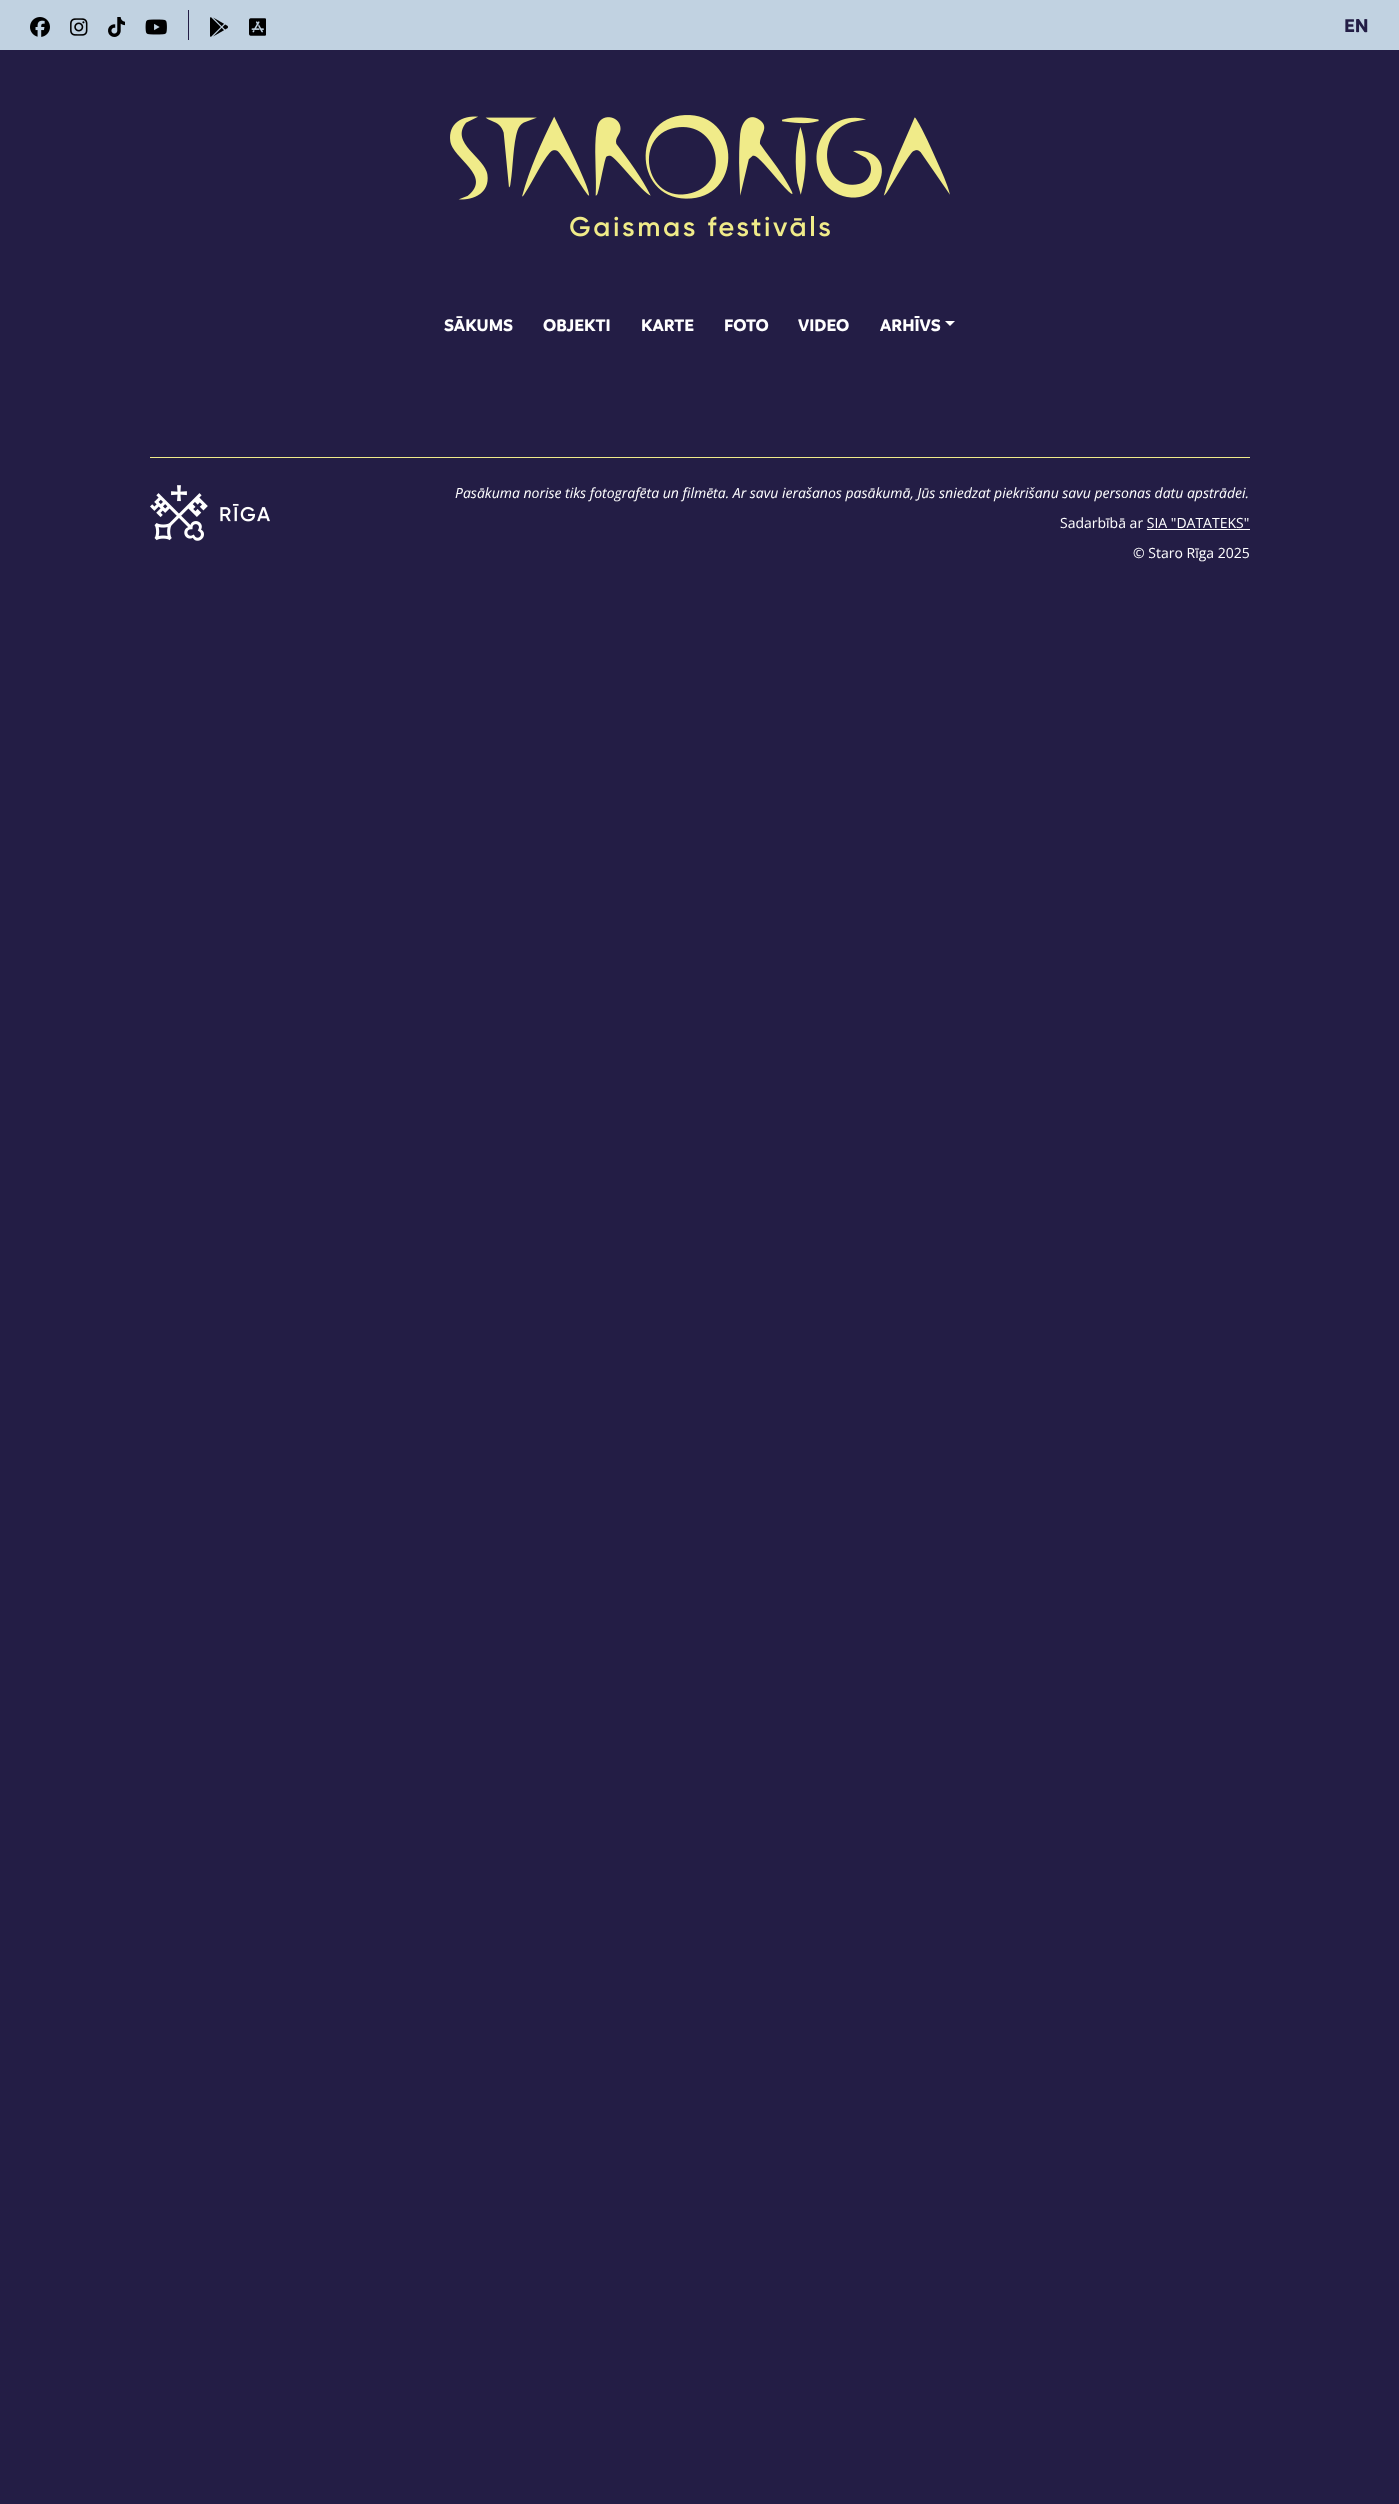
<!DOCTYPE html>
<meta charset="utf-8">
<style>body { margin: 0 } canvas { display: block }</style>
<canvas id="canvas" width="1399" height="2504"></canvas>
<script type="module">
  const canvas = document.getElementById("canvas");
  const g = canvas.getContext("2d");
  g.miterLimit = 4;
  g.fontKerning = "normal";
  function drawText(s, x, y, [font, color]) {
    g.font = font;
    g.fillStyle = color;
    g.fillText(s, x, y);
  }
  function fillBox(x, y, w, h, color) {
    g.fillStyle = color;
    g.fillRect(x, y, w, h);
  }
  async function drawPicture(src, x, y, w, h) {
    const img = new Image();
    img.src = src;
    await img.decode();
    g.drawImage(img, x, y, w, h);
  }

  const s1 = ["bold 20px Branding", "#231D45"];
  const s2 = ["bold 18px Branding", "#FFFFFF"];
  const s3 = ["italic 14px Open Sans", "#FFFFFF"];
  const s4 = ["14px Open Sans", "#FFFFFF"];

  fillBox(0, 0, 1399, 2504, "#231D45");
  fillBox(0, 0, 1399, 50, "#C1D2E1");
  await drawPicture("pic1.png", 30, 17, 20, 20);
  await drawPicture("pic2.png", 70, 18, 18, 18);
  await drawPicture("pic3.png", 108, 17, 17, 20);
  await drawPicture("pic4.png", 145, 19, 22, 16);
  fillBox(188, 10, 1, 30, "#231D45");
  await drawPicture("pic5.png", 210, 17, 18, 20);
  await drawPicture("pic6.png", 249, 18, 17, 18);
  drawText("EN", 1344, 32, s1);
  await drawPicture("pic7.png", 450, 115, 500, 122);
  drawText("SĀKUMS", 444, 331, s2);
  drawText("OBJEKTI", 543, 331, s2);
  drawText("KARTE", 641, 331, s2);
  drawText("FOTO", 724, 331, s2);
  drawText("VIDEO", 798, 331, s2);
  drawText("ARHĪVS", 880, 331, s2);
  g.beginPath();
  g.moveTo(945, 321);
  g.lineTo(955, 321);
  g.lineTo(950, 326);
  g.closePath();
  g.fill();
  fillBox(150, 457, 1100, 1, "#F0EB89");
  await drawPicture("pic8.png", 150, 485, 120, 56);
  drawText("Pasākuma norise tiks fotografēta un filmēta. Ar savu ierašanos pasākumā, Jūs sniedzat piekrišanu savu personas datu apstrādei.", 455, 498, s3);
  drawText("Sadarbībā ar SIA \"DATATEKS\"", 1060, 528, s4);
  fillBox(1147, 529, 103, 1, "#FFFFFF");
  drawText("© Staro Rīga 2025", 1133, 558, s4);
</script>
